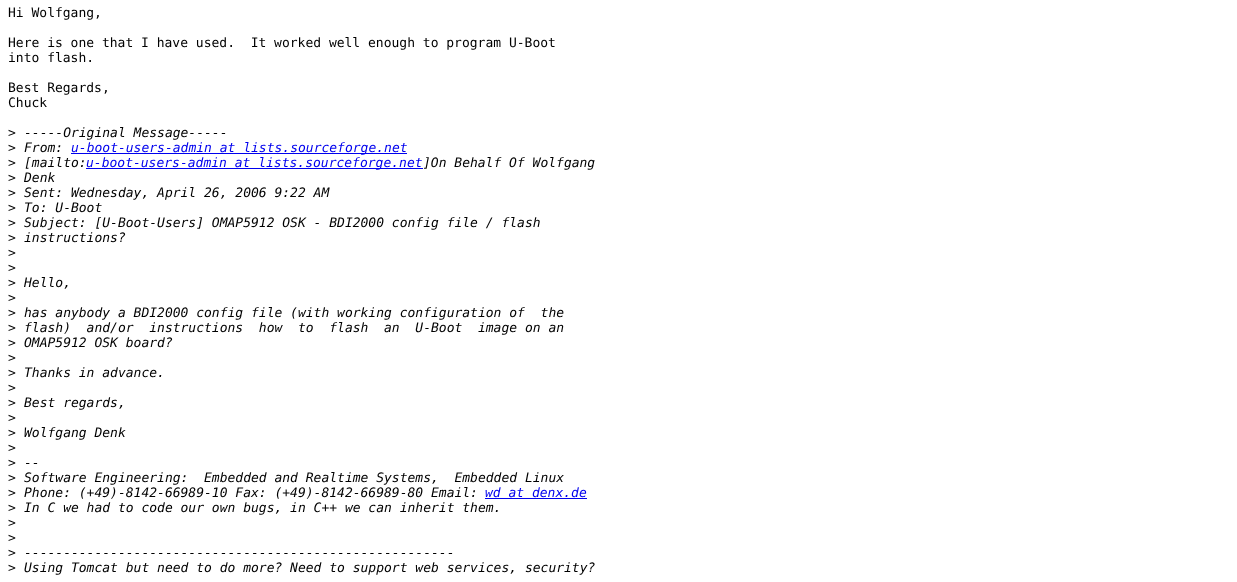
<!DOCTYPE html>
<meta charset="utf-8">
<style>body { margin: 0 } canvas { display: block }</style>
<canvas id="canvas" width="1237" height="582"></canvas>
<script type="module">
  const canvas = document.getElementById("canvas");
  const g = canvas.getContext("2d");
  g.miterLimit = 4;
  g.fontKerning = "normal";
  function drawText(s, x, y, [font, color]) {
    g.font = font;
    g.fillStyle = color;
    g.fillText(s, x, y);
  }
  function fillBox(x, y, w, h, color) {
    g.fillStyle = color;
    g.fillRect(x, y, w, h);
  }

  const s1 = ["13px DejaVu Sans Mono", "#000000"];
  const s2 = ["italic 13px DejaVu Sans Mono", "#000000"];
  const s3 = ["italic 13px DejaVu Sans Mono", "#0000EE"];

  fillBox(0, 0, 1237, 582, "#FFFFFF");
  drawText("Hi Wolfgang,", 8, 17, s1);
  drawText("Here is one that I have used.  It worked well enough to program U-Boot", 8, 47, s1);
  drawText("into flash.", 8, 62, s1);
  drawText("Best Regards,", 8, 92, s1);
  drawText("Chuck", 8, 107, s1);
  drawText(">", 8, 137, s1);
  drawText("-----Original Message-----", 24, 137, s2);
  drawText(">", 8, 152, s1);
  drawText("From:", 24, 152, s2);
  fillBox(71, 153, 336, 1, "#0000EE");
  drawText("u-boot-users-admin at lists.sourceforge.net", 71, 152, s3);
  drawText(">", 8, 167, s1);
  drawText("[mailto:", 24, 167, s2);
  fillBox(86, 168, 337, 1, "#0000EE");
  drawText("u-boot-users-admin at lists.sourceforge.net", 86, 167, s3);
  drawText("]On Behalf Of Wolfgang", 423, 167, s2);
  drawText(">", 8, 182, s1);
  drawText("Denk", 24, 182, s2);
  drawText(">", 8, 197, s1);
  drawText("Sent: Wednesday, April 26, 2006 9:22 AM", 24, 197, s2);
  drawText(">", 8, 212, s1);
  drawText("To: U-Boot", 24, 212, s2);
  drawText(">", 8, 227, s1);
  drawText("Subject: [U-Boot-Users] OMAP5912 OSK - BDI2000 config file / flash", 24, 227, s2);
  drawText(">", 8, 242, s1);
  drawText("instructions?", 24, 242, s2);
  drawText(">", 8, 257, s1);
  drawText(">", 8, 272, s1);
  drawText(">", 8, 287, s1);
  drawText("Hello,", 24, 287, s2);
  drawText(">", 8, 302, s1);
  drawText(">", 8, 317, s1);
  drawText("has anybody a BDI2000 config file (with working configuration of  the", 24, 317, s2);
  drawText(">", 8, 332, s1);
  drawText("flash)  and/or  instructions  how  to  flash  an  U-Boot  image on an", 24, 332, s2);
  drawText(">", 8, 347, s1);
  drawText("OMAP5912 OSK board?", 24, 347, s2);
  drawText(">", 8, 362, s1);
  drawText(">", 8, 377, s1);
  drawText("Thanks in advance.", 24, 377, s2);
  drawText(">", 8, 392, s1);
  drawText(">", 8, 407, s1);
  drawText("Best regards,", 24, 407, s2);
  drawText(">", 8, 422, s1);
  drawText(">", 8, 437, s1);
  drawText("Wolfgang Denk", 24, 437, s2);
  drawText(">", 8, 452, s1);
  drawText(">", 8, 467, s1);
  drawText("--", 24, 467, s2);
  drawText(">", 8, 482, s1);
  drawText("Software Engineering:  Embedded and Realtime Systems,  Embedded Linux", 24, 482, s2);
  drawText(">", 8, 497, s1);
  drawText("Phone: (+49)-8142-66989-10 Fax: (+49)-8142-66989-80 Email:", 24, 497, s2);
  drawText("wd at denx.de", 485, 497, s3);
  fillBox(485, 498, 102, 1, "#0000EE");
  drawText(">", 8, 512, s1);
  drawText("In C we had to code our own bugs, in C++ we can inherit them.", 24, 512, s2);
  drawText(">", 8, 527, s1);
  drawText(">", 8, 542, s1);
  drawText(">", 8, 557, s1);
  drawText("-------------------------------------------------------", 24, 557, s2);
  drawText(">", 8, 572, s1);
  drawText("Using Tomcat but need to do more? Need to support web services, security?", 24, 572, s2);
</script>
